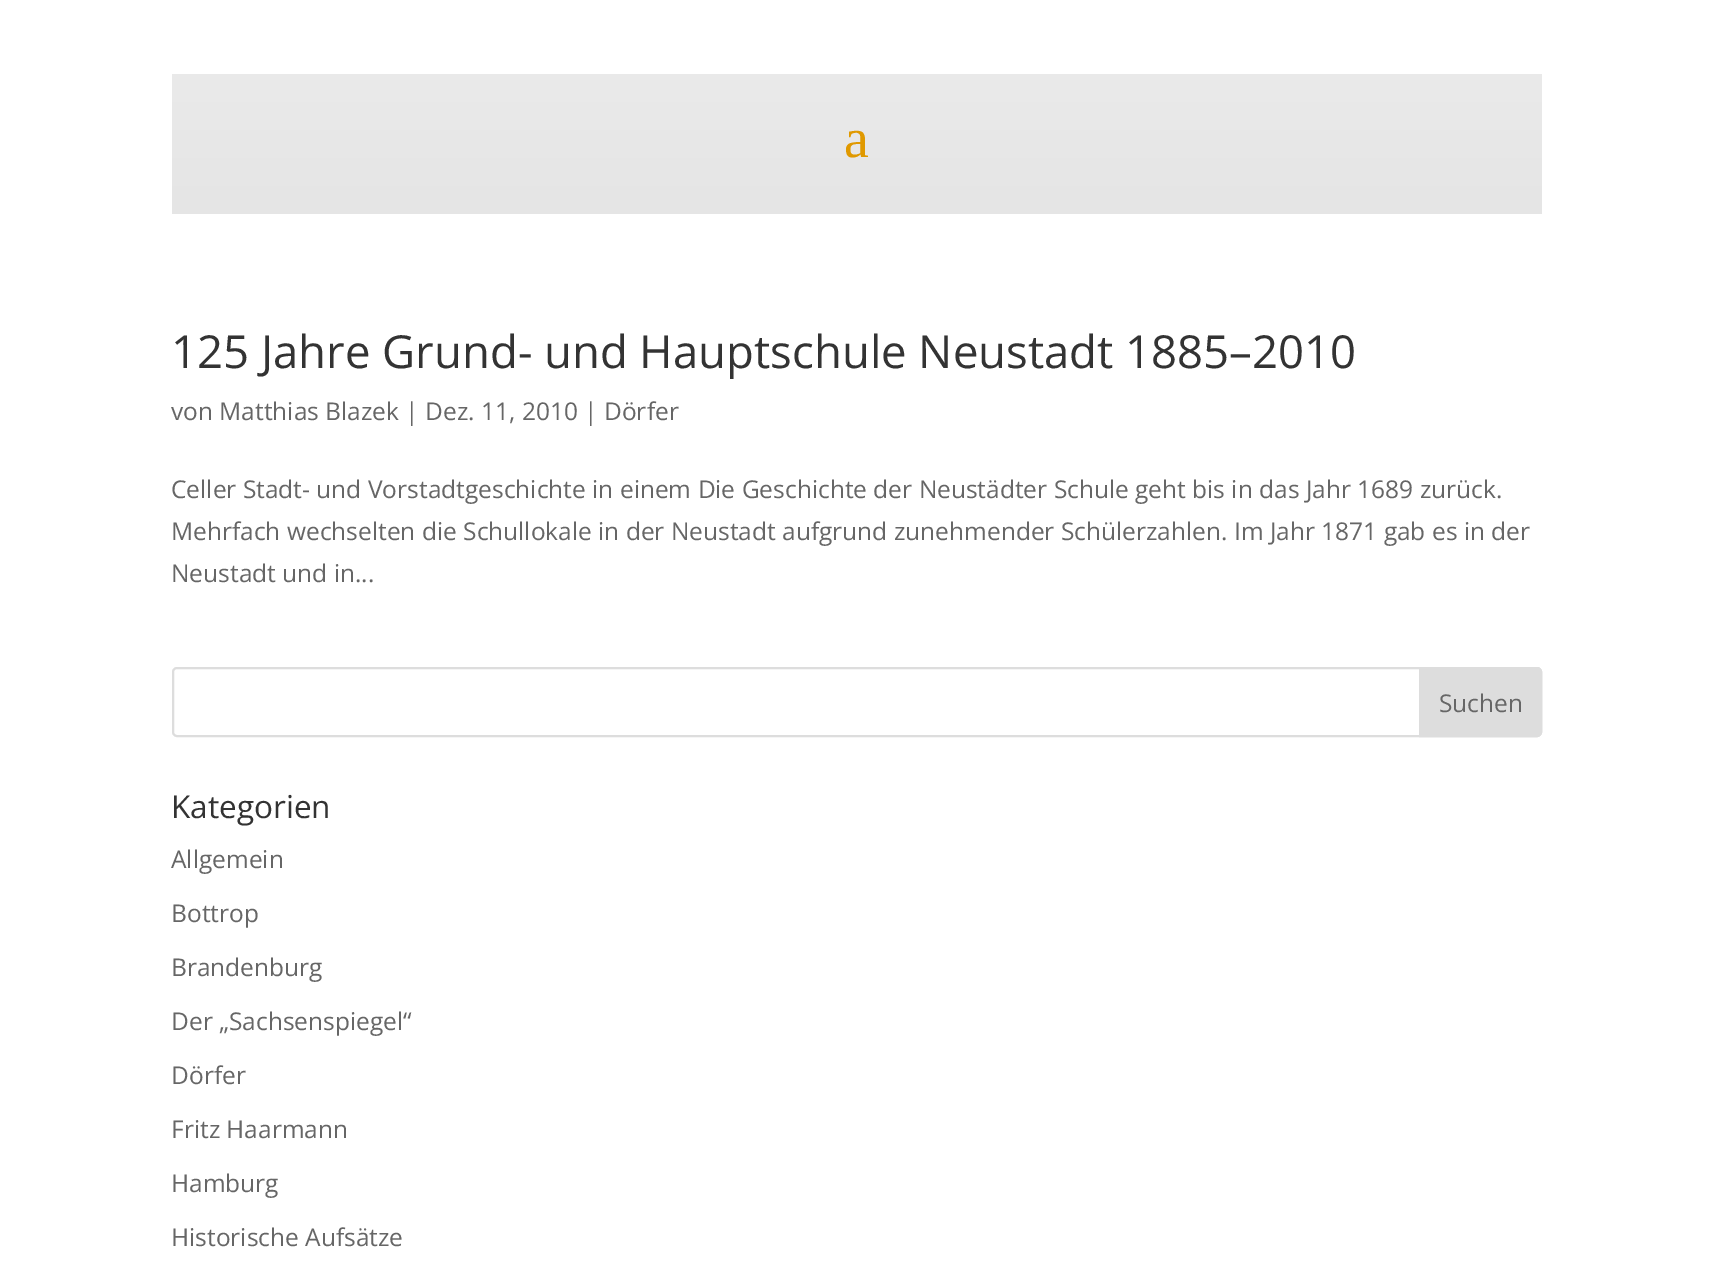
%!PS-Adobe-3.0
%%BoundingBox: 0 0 1713 1283
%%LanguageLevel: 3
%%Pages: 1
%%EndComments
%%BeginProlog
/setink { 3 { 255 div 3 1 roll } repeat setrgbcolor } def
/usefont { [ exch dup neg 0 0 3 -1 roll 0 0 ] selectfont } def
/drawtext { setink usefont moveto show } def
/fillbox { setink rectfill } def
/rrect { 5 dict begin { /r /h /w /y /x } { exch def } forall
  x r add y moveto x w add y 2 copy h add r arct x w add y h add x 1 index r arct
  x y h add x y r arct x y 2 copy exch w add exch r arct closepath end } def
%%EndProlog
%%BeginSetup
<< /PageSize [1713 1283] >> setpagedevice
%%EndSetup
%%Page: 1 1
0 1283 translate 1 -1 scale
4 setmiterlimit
0 0 1713 1283 255 255 255 fillbox
gsave 172 74 moveto 1542 74 lineto 1542 214 lineto 172 214 lineto closepath clip newpath
<< /ShadingType 2 /ColorSpace /DeviceRGB /Coords [857 73 857 214] /Extend [true true] /Function << /FunctionType 2 /Domain [0 1] /C0 [0.918 0.918 0.918] /C1 [0.898 0.898 0.898] /N 1 >> >> shfill grestore
(a) 844 157 /LiberationSerif-Regular 56 224 153 0 drawtext
(125 Jahre Grund- und Hauptschule Neustadt 1885–2010) 171 368 /OpenSans-Regular 45.5 51 51 51 drawtext
(von Matthias Blazek | Dez. 11, 2010 | Dörfer) 171 420 /OpenSans-Regular 24.5 102 102 102 drawtext
(Celler Stadt- und Vorstadtgeschichte in einem Die Geschichte der Neustädter Schule geht bis in das Jahr 1689 zurück.) 171 498 /OpenSans-Regular 24.5 102 102 102 drawtext
(Mehrfach wechselten die Schullokale in der Neustadt aufgrund zunehmender Schülerzahlen. Im Jahr 1871 gab es in der) 171 540 /OpenSans-Regular 24.5 102 102 102 drawtext
(Neustadt und in...) 171 582 /OpenSans-Regular 24.5 102 102 102 drawtext
221 221 221 setink
2 setlinewidth
173 668 1368 68 4 rrect stroke
1420 668 moveto 1537 668 lineto 1539 668 1541 670 1541 672 curveto 1541 732 lineto 1541 734 1539 736 1537 736 curveto 1420 736 lineto closepath gsave fill grestore
stroke
(Suchen) 1439 712 /OpenSans-Regular 24.5 102 102 102 drawtext
(Kategorien) 171 818 /OpenSans-Regular 31.5 51 51 51 drawtext
(Allgemein) 171 868 /OpenSans-Regular 24.5 102 102 102 drawtext
(Bottrop) 171 922 /OpenSans-Regular 24.5 102 102 102 drawtext
(Brandenburg) 171 976 /OpenSans-Regular 24.5 102 102 102 drawtext
(Der „Sachsenspiegel“) 171 1030 /OpenSans-Regular 24.5 102 102 102 drawtext
(Dörfer) 171 1084 /OpenSans-Regular 24.5 102 102 102 drawtext
(Fritz Haarmann) 171 1138 /OpenSans-Regular 24.5 102 102 102 drawtext
(Hamburg) 171 1192 /OpenSans-Regular 24.5 102 102 102 drawtext
(Historische Aufsätze) 171 1246 /OpenSans-Regular 24.5 102 102 102 drawtext
showpage
%%EOF
